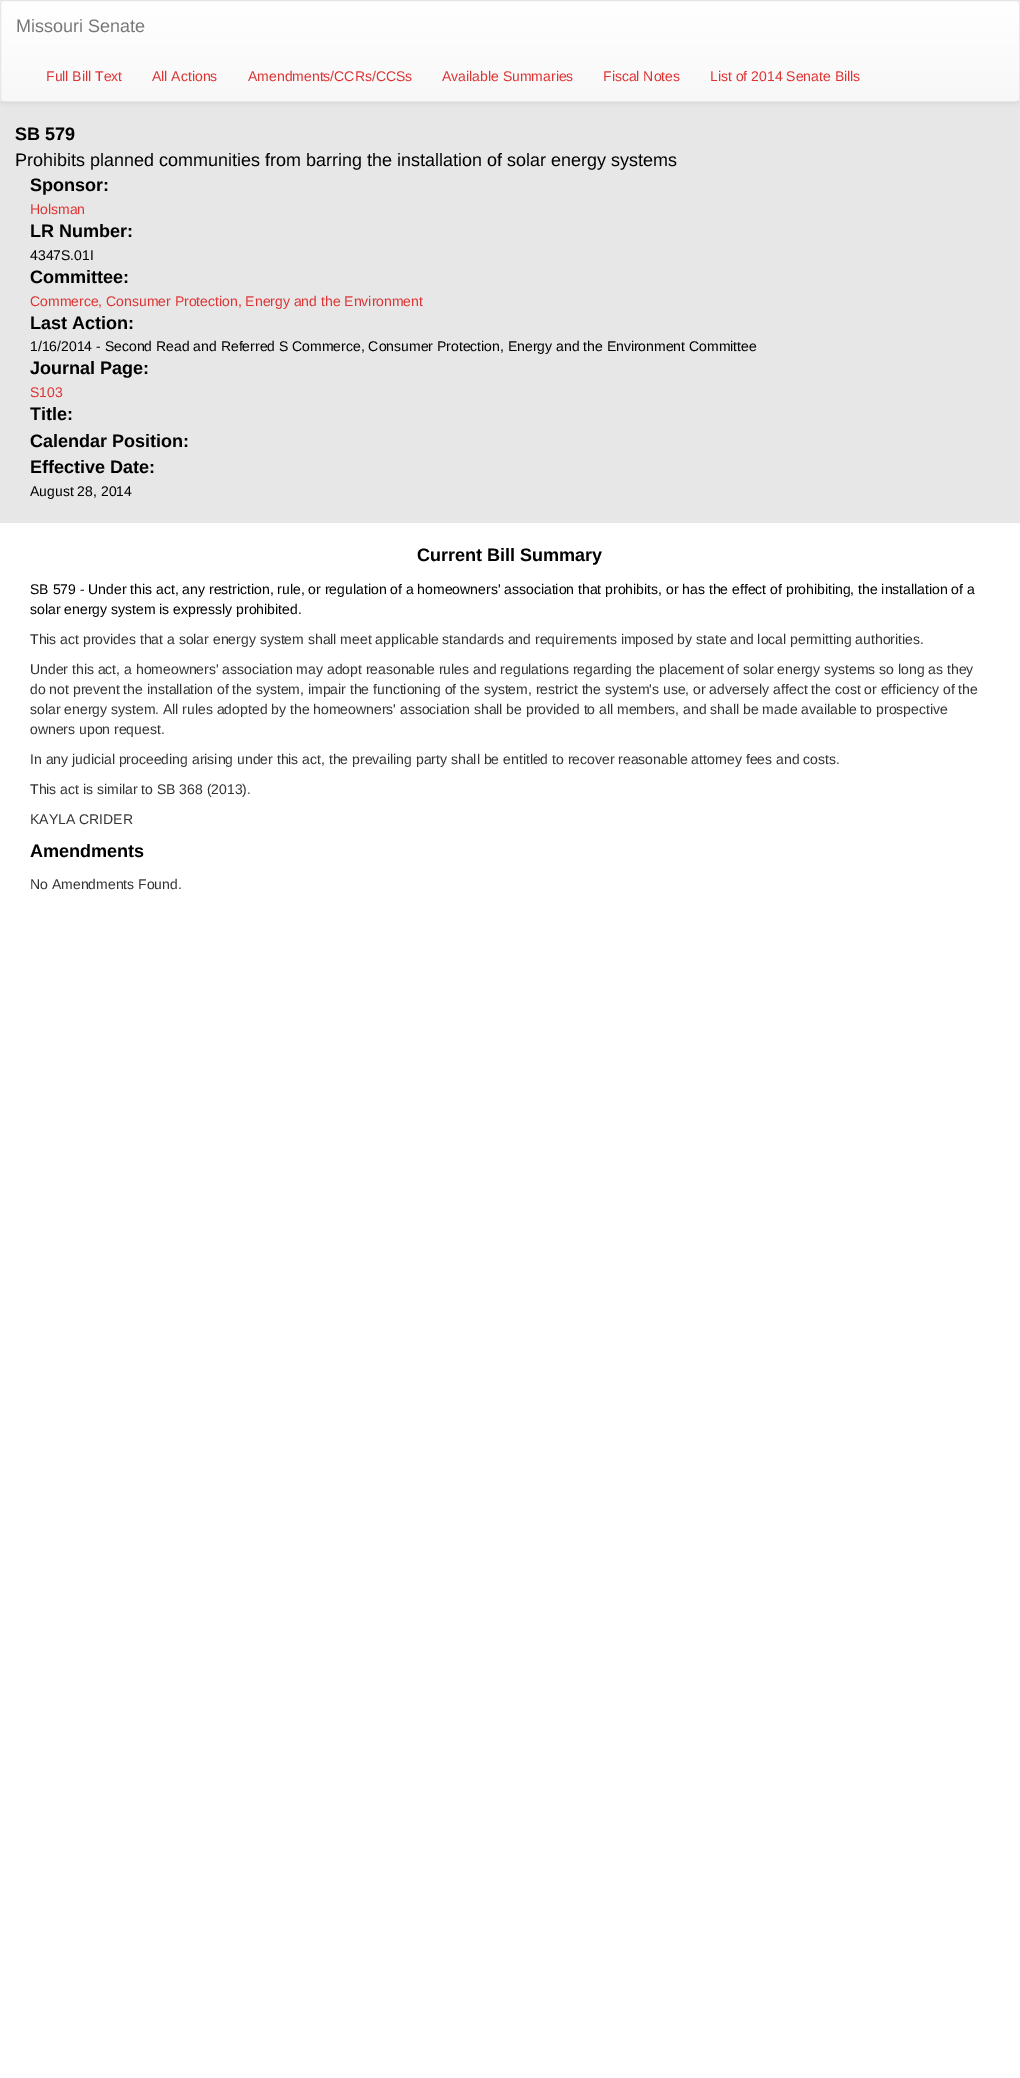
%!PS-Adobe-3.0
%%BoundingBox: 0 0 1020 2078
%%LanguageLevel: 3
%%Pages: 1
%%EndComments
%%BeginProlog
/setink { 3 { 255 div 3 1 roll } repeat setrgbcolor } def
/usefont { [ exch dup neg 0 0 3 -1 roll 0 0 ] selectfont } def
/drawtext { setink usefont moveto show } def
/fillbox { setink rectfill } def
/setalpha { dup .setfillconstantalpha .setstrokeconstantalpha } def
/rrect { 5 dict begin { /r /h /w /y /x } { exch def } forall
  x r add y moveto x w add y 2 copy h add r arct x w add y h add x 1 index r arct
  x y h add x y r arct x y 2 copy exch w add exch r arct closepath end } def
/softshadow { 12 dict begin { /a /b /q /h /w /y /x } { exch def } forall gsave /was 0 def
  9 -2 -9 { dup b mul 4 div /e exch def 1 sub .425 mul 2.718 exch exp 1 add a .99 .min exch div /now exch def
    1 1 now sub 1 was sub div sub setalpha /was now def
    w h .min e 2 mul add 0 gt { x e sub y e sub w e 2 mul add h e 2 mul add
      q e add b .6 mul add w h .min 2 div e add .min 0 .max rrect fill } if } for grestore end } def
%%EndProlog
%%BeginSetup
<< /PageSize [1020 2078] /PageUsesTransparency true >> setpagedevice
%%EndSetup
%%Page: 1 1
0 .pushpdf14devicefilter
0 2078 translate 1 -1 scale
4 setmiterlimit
0 0 1020 2078 255 255 255 fillbox
0 0 1020 523 231 231 231 fillbox
0 0 0 setink
0 1 1020 102 4 2.5 0.07 softshadow
gsave
0 0 1020 102 4 rrect clip newpath
gsave 0 1 moveto 1020 1 lineto 1020 101 lineto 0 101 lineto closepath clip newpath
<< /ShadingType 2 /ColorSpace /DeviceRGB /Coords [510 1 510 101] /Extend [true true] /Function << /FunctionType 2 /Domain [0 1] /C0 [1 1 1] /C1 [0.973 0.973 0.973] /N 1 >> >> shfill grestore
grestore
231 231 231 setink
0.5 0.5 1019 101 3.5 rrect stroke
(Missouri Senate) 16 32 /LiberationSans-Regular 18 119 119 119 drawtext
(Full Bill Text) 46 81 /LiberationSans-Regular 14 221 51 51 drawtext
(All Actions) 152 81 /LiberationSans-Regular 14 221 51 51 drawtext
(Amendments/CCRs/CCSs) 248 81 /LiberationSans-Regular 14 221 51 51 drawtext
(Available Summaries) 442 81 /LiberationSans-Regular 14 221 51 51 drawtext
(Fiscal Notes) 603 81 /LiberationSans-Regular 14 221 51 51 drawtext
(List of 2014 Senate Bills) 710 81 /LiberationSans-Regular 14 221 51 51 drawtext
(SB 579) 15 140 /LiberationSans-Bold 18 0 0 0 drawtext
(Prohibits planned communities from barring the installation of solar energy systems) 15 166 /LiberationSans-Regular 18 0 0 0 drawtext
(Sponsor:) 30 191 /LiberationSans-Bold 18 0 0 0 drawtext
(Holsman) 30 214 /LiberationSans-Regular 14 221 51 51 drawtext
(LR Number:) 30 237 /LiberationSans-Bold 18 0 0 0 drawtext
(4347S.01I) 30 260 /LiberationSans-Regular 14 0 0 0 drawtext
(Committee:) 30 283 /LiberationSans-Bold 18 0 0 0 drawtext
(Commerce, Consumer Protection, Energy and the Environment) 30 306 /LiberationSans-Regular 14 221 51 51 drawtext
(Last Action:) 30 329 /LiberationSans-Bold 18 0 0 0 drawtext
(1/16/2014 - Second Read and Referred S Commerce, Consumer Protection, Energy and the Environment Committee) 30 351 /LiberationSans-Regular 14 0 0 0 drawtext
(Journal Page:) 30 374 /LiberationSans-Bold 18 0 0 0 drawtext
(S103) 30 397 /LiberationSans-Regular 14 221 51 51 drawtext
(Title:) 30 420 /LiberationSans-Bold 18 0 0 0 drawtext
(Calendar Position:) 30 447 /LiberationSans-Bold 18 0 0 0 drawtext
(Effective Date:) 30 473 /LiberationSans-Bold 18 0 0 0 drawtext
(August 28, 2014) 30 496 /LiberationSans-Regular 14 0 0 0 drawtext
(Current Bill Summary) 417 561 /LiberationSans-Bold 18 0 0 0 drawtext
(SB 579 - Under this act, any restriction, rule, or regulation of a homeowners' association that prohibits, or has the effect of prohibiting, the installation of a) 30 594 /LiberationSans-Regular 14 0 0 0 drawtext
(solar energy system is expressly prohibited.) 30 614 /LiberationSans-Regular 14 0 0 0 drawtext
(This act provides that a solar energy system shall meet applicable standards and requirements imposed by state and local permitting authorities.) 30 644 /LiberationSans-Regular 14 51 51 51 drawtext
(Under this act, a homeowners' association may adopt reasonable rules and regulations regarding the placement of solar energy systems so long as they) 30 674 /LiberationSans-Regular 14 51 51 51 drawtext
(do not prevent the installation of the system, impair the functioning of the system, restrict the system's use, or adversely affect the cost or efficiency of the) 30 694 /LiberationSans-Regular 14 51 51 51 drawtext
(solar energy system. All rules adopted by the homeowners' association shall be provided to all members, and shall be made available to prospective) 30 714 /LiberationSans-Regular 14 51 51 51 drawtext
(owners upon request.) 30 734 /LiberationSans-Regular 14 51 51 51 drawtext
(In any judicial proceeding arising under this act, the prevailing party shall be entitled to recover reasonable attorney fees and costs.) 30 764 /LiberationSans-Regular 14 51 51 51 drawtext
(This act is similar to SB 368 \(2013\).) 30 794 /LiberationSans-Regular 14 51 51 51 drawtext
(KAYLA CRIDER) 30 824 /LiberationSans-Regular 14 51 51 51 drawtext
(Amendments) 30 857 /LiberationSans-Bold 18 0 0 0 drawtext
(No Amendments Found.) 30 889 /LiberationSans-Regular 14 51 51 51 drawtext
.poppdf14devicefilter showpage
%%EOF
